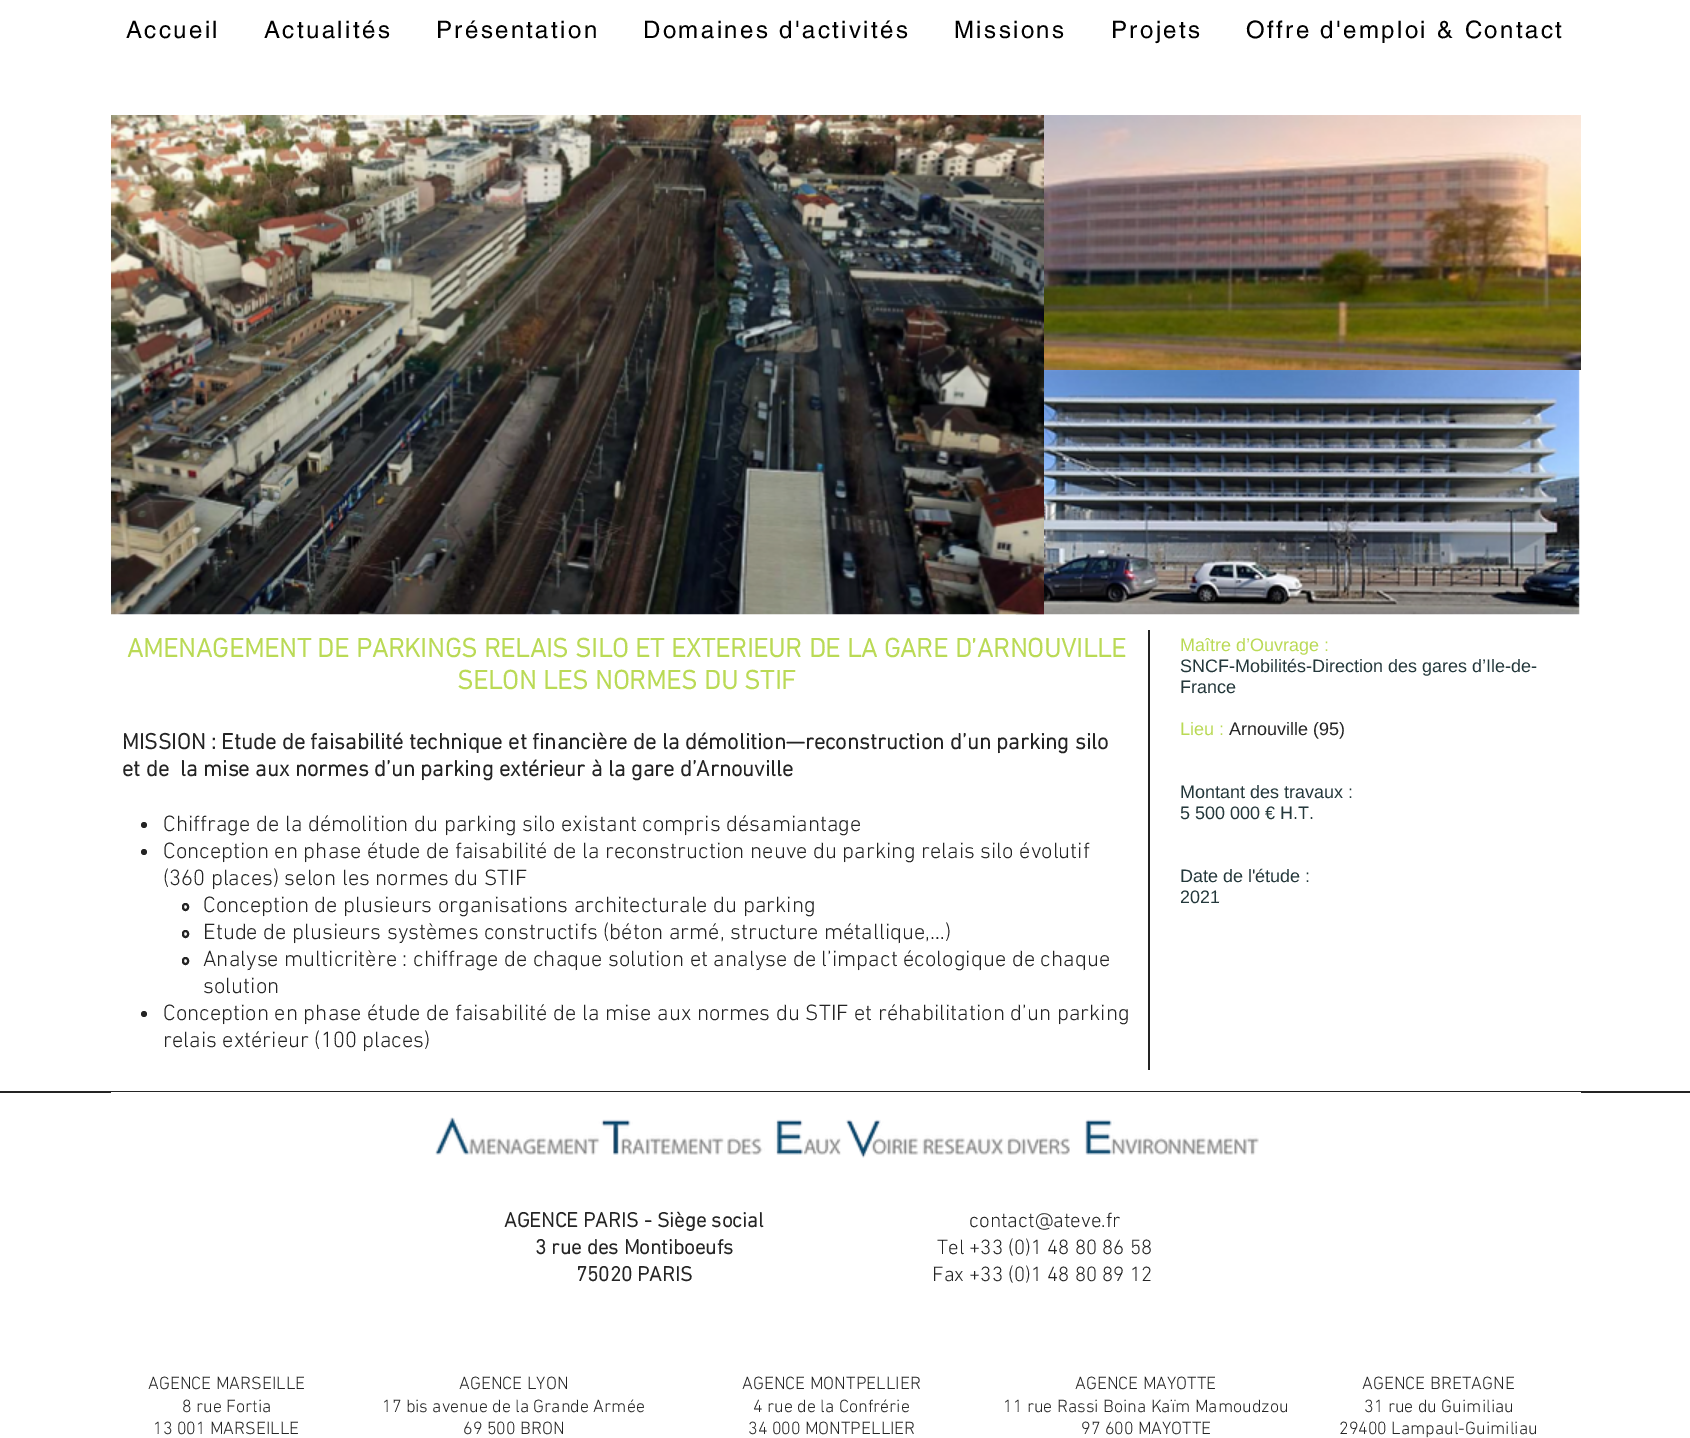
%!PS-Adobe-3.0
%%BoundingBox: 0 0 1690 1438
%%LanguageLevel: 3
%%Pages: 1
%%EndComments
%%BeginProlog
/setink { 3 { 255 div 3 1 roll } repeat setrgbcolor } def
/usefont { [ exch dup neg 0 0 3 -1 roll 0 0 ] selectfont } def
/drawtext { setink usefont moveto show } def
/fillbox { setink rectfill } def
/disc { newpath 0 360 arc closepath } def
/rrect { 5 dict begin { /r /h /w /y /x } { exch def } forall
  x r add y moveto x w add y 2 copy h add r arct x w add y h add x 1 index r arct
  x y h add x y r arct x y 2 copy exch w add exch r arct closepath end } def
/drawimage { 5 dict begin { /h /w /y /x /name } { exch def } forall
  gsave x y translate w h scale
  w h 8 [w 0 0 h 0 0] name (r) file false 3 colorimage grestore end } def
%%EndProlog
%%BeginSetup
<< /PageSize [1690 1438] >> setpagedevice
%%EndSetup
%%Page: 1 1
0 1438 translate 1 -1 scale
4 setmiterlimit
0 0 1690 1438 255 255 255 fillbox
/helvetica-Regular 24 usefont
0 0 0 setink
126 38 moveto 2.4 0 (Accueil) ashow
264 38 moveto 2.4 0 (Actualités) ashow
436 38 moveto 2.4 0 (Présentation) ashow
643 38 moveto 2.4 0 (Domaines d'activités) ashow
954 38 moveto 2.4 0 (Missions) ashow
1111 38 moveto 2.4 0 (Projets) ashow
1246 38 moveto 2.4 0 (Offre d'emploi & Contact) ashow
(assets/img3.rgb) 1015 370 565 245 drawimage
(assets/img1.rgb) 111 115 933 500 drawimage
(assets/img2.rgb) 1044 115 537 255 drawimage
(AMENAGEMENT DE PARKINGS RELAIS SILO ET EXTERIEUR DE LA GARE D’ARNOUVILLE) 127 657 /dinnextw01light-Bold 27 186 218 85 drawtext
(SELON LES NORMES DU STIF) 457 689 /dinnextw01light-Bold 27 186 218 85 drawtext
(MISSION : Etude de faisabilité technique et financière de la démolition—reconstruction d’un parking silo) 122 749 /dinnextw01light-Bold 22.5 36 36 36 drawtext
(et de  la mise aux normes d’un parking extérieur à la gare d’Arnouville) 122 776 /dinnextw01light-Bold 22.5 36 36 36 drawtext
144 825 3 disc fill
(Chiffrage de la démolition du parking silo existant compris désamiantage) 163 831 /dinnextw01light-Light 22.5 36 36 36 drawtext
144 852 3 disc fill
(Conception en phase étude de faisabilité de la reconstruction neuve du parking relais silo évolutif) 163 858 /dinnextw01light-Light 22.5 36 36 36 drawtext
(\(360 places\) selon les normes du STIF) 163 885 /dinnextw01light-Light 22.5 36 36 36 drawtext
2 setlinewidth
183 904 5 6 2.5 rrect stroke
(Conception de plusieurs organisations architecturale du parking) 203 912 /dinnextw01light-Light 22.5 36 36 36 drawtext
183 931 5 6 2.5 rrect stroke
(Etude de plusieurs systèmes constructifs \(béton armé, structure métallique,…\)) 203 939 /dinnextw01light-Light 22.5 36 36 36 drawtext
183 958 5 6 2.5 rrect stroke
(Analyse multicritère : chiffrage de chaque solution et analyse de l’impact écologique de chaque) 203 966 /dinnextw01light-Light 22.5 36 36 36 drawtext
(solution) 203 993 /dinnextw01light-Light 22.5 36 36 36 drawtext
144 1014 3 disc fill
(Conception en phase étude de faisabilité de la mise aux normes du STIF et réhabilitation d’un parking) 163 1020 /dinnextw01light-Light 22.5 36 36 36 drawtext
(relais extérieur \(100 places\)) 163 1047 /dinnextw01light-Light 22.5 36 36 36 drawtext
1148 630 2 440 36 36 36 fillbox
(Maître d’Ouvrage :) 1180 651 /LiberationSans-Regular 18 186 218 85 drawtext
(SNCF-Mobilités-Direction des gares d’Ile-de-) 1180 672 /LiberationSans-Regular 18 36 56 59 drawtext
(France) 1180 693 /LiberationSans-Regular 18 36 56 59 drawtext
(Lieu :) 1180 735 /LiberationSans-Regular 18 186 218 85 drawtext
(Arnouville \(95\)) 1229 735 /LiberationSans-Regular 18 36 36 36 drawtext
(Montant des travaux :) 1180 798 /LiberationSans-Regular 18 36 56 59 drawtext
(5 500 000 € H.T.) 1180 819 /LiberationSans-Regular 18 36 56 59 drawtext
(Date de l'étude :) 1180 882 /LiberationSans-Regular 18 36 56 59 drawtext
(2021) 1180 903 /LiberationSans-Regular 18 36 56 59 drawtext
0 1091 1690 2 36 36 36 fillbox
111 1092 1470 1 255 255 255 fillbox
(assets/img4.rgb) 435 1117 824 41 drawimage
(AGENCE PARIS - Siège social) 504 1227 /dinnextw01light-Bold 21 36 36 36 drawtext
(3 rue des Montiboeufs) 535 1254 /dinnextw01light-Bold 21 36 36 36 drawtext
(75020 PARIS) 576 1281 /dinnextw01light-Bold 21 36 36 36 drawtext
(contact@ateve.fr) 969 1227 /dinnextw01light-Light 21 36 36 36 drawtext
(Tel +33 \(0\)1 48 80 86 58) 937 1254 /dinnextw01light-Light 21 36 36 36 drawtext
(Fax +33 \(0\)1 48 80 89 12) 932 1281 /dinnextw01light-Light 21 36 36 36 drawtext
(AGENCE MARSEILLE) 148 1389 /dinnextw01light-Light 18 36 36 36 drawtext
(8 rue Fortia) 182 1412 /dinnextw01light-Light 18 36 36 36 drawtext
(13 001 MARSEILLE) 153 1434 /dinnextw01light-Light 18 36 36 36 drawtext
(AGENCE LYON) 459 1389 /dinnextw01light-Light 18 36 36 36 drawtext
(17 bis avenue de la Grande Armée) 382 1412 /dinnextw01light-Light 18 36 36 36 drawtext
(69 500 BRON) 463 1434 /dinnextw01light-Light 18 36 36 36 drawtext
(AGENCE MONTPELLIER) 742 1389 /dinnextw01light-Light 18 36 36 36 drawtext
(4 rue de la Confrérie) 753 1412 /dinnextw01light-Light 18 36 36 36 drawtext
(34 000 MONTPELLIER) 748 1434 /dinnextw01light-Light 18 36 36 36 drawtext
(AGENCE MAYOTTE) 1075 1389 /dinnextw01light-Light 18 36 36 36 drawtext
(11 rue Rassi Boina Kaïm Mamoudzou) 1003 1412 /dinnextw01light-Light 18 36 36 36 drawtext
(97 600 MAYOTTE) 1081 1434 /dinnextw01light-Light 18 36 36 36 drawtext
(AGENCE BRETAGNE) 1362 1389 /dinnextw01light-Light 18 36 36 36 drawtext
(31 rue du Guimiliau) 1364 1412 /dinnextw01light-Light 18 36 36 36 drawtext
(29400 Lampaul-Guimiliau) 1339 1434 /dinnextw01light-Light 18 36 36 36 drawtext
showpage
%%EOF
